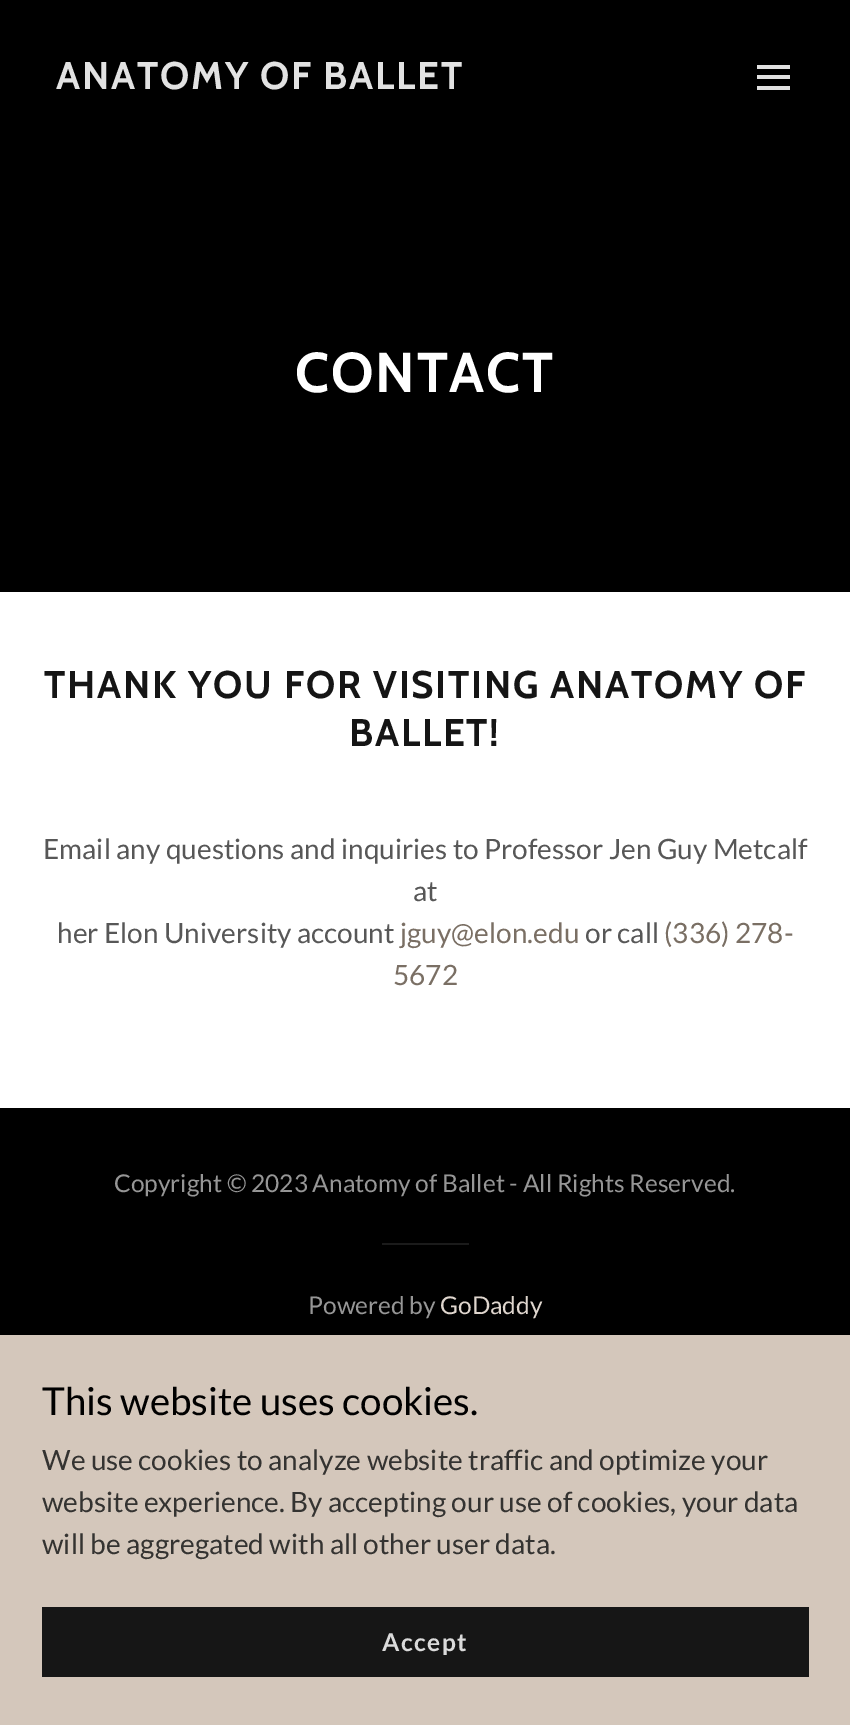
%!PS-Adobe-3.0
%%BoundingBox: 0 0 850 1725
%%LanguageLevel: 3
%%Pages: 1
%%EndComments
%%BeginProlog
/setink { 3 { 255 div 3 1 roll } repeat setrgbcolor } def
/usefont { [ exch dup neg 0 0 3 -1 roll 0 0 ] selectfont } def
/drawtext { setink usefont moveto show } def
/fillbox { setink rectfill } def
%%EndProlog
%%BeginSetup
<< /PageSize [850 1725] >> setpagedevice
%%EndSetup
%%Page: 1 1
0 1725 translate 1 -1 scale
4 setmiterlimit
0 0 850 1725 0 0 0 fillbox
/Cabin-Bold 38.5 usefont
226 226 226 setink
56 89 moveto 1.75 0 (ANATOMY OF BALLET) ashow
757 65 33 4 226 226 226 fillbox
757 75 33 4 226 226 226 fillbox
757 86 33 4 226 226 226 fillbox
/Cabin-Bold 56 usefont
255 255 255 setink
295 392 moveto 1.75 0 (CONTACT) ashow
0 592 850 516 255 255 255 fillbox
/Cabin-Bold 38.5 usefont
21 21 21 setink
44 698 moveto 1.75 0 (THANK YOU FOR VISITING ANATOMY OF) ashow
349 746 moveto 1.75 0 (BALLET!) ashow
(Email any questions and inquiries to Professor Jen Guy Metcalf) 43 859 /Lato-Regular 28 87 87 87 drawtext
(at) 413 901 /Lato-Regular 28 87 87 87 drawtext
(her Elon University account) 57 943 /Lato-Regular 28 87 87 87 drawtext
(jguy@elon.edu) 400 943 /Lato-Regular 28 122 111 100 drawtext
(or call) 585 943 /Lato-Regular 28 87 87 87 drawtext
(\(336\) 278-) 664 943 /Lato-Regular 28 122 111 100 drawtext
(5672) 393 985 /Lato-Regular 28 122 111 100 drawtext
(Copyright © 2023 Anatomy of Ballet - All Rights Reserved.) 114 1192 /Lato-Regular 24.5 150 150 150 drawtext
382 1243 87 2 27 27 27 fillbox
(Powered by) 308 1314 /Lato-Regular 24.5 150 150 150 drawtext
(GoDaddy) 440 1314 /Lato-Regular 24.5 223 214 206 drawtext
0 1335 850 390 212 199 187 fillbox
(This website uses cookies.) 42 1415 /Lato-Regular 38.5 0 0 0 drawtext
(We use cookies to analyze website traffic and optimize your) 42 1470 /Lato-Regular 28 52 51 49 drawtext
(website experience. By accepting our use of cookies, your data) 42 1512 /Lato-Regular 28 52 51 49 drawtext
(will be aggregated with all other user data.) 42 1554 /Lato-Regular 28 52 51 49 drawtext
42 1607 767 70 22 22 22 fillbox
/Lato-Bold 24.5 usefont
219 219 219 setink
382 1651 moveto 1.5 0 (Accept) ashow
showpage
%%EOF
